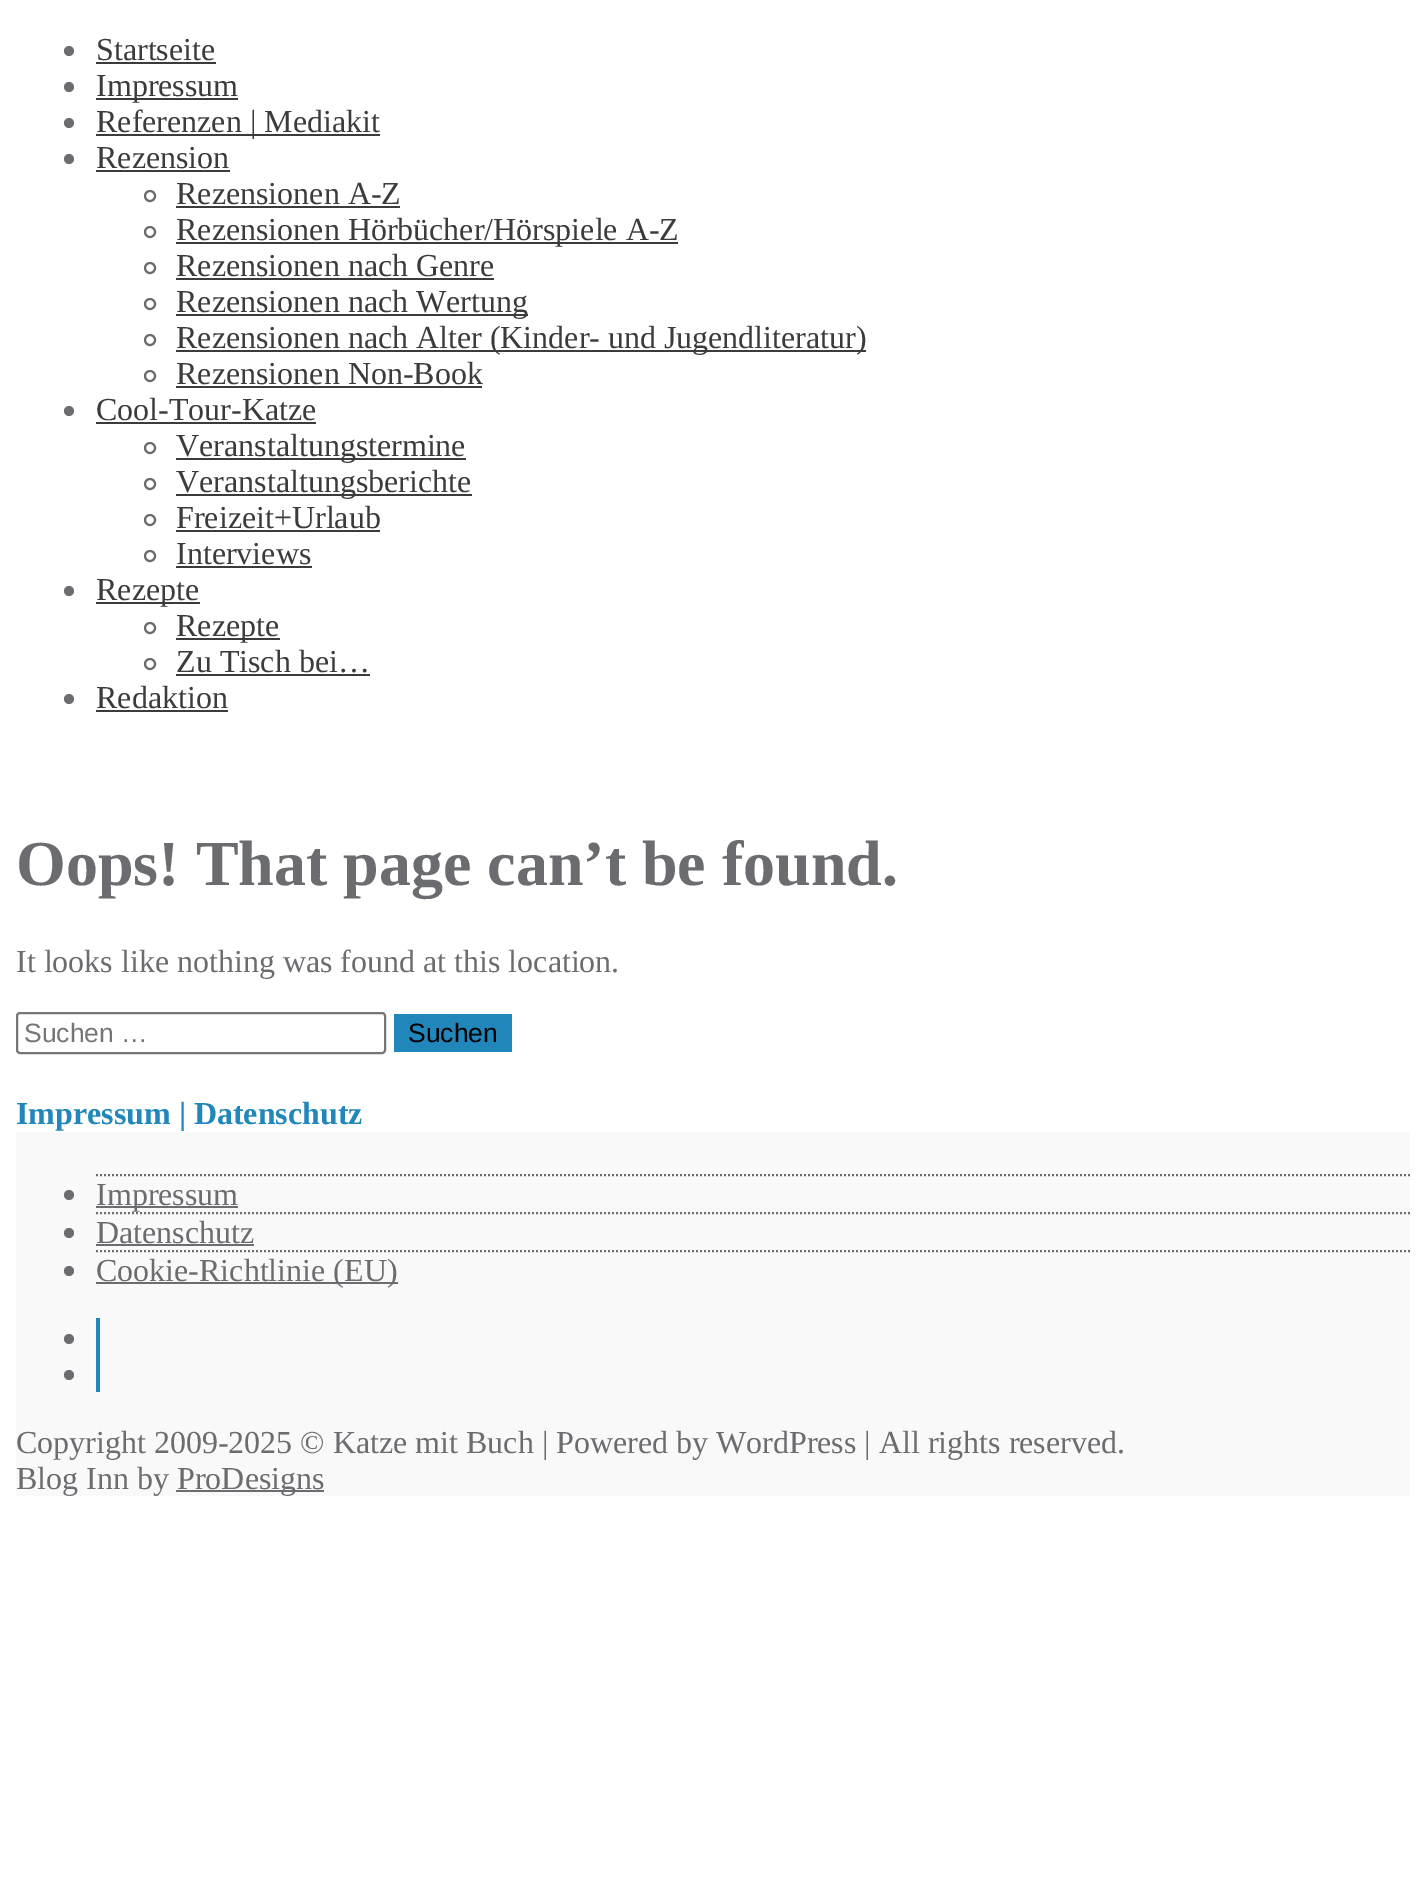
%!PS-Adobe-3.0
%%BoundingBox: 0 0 1425 1898
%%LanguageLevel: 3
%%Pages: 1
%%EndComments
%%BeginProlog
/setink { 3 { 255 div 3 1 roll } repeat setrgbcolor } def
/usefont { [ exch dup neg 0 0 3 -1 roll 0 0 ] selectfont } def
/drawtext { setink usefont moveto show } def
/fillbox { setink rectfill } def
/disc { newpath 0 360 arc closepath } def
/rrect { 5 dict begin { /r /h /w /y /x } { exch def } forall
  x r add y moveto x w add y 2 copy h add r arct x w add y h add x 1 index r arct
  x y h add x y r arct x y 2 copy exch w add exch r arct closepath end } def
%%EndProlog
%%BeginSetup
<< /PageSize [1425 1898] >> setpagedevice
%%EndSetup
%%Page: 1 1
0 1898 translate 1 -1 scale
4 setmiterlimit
0 0 1425 1898 255 255 255 fillbox
106 108 111 setink
69 51 5 disc fill
(Startseite) 96 60 /LiberationSerif-Regular 32 58 59 61 drawtext
96 62 120 2 58 59 61 fillbox
106 108 111 setink
69 87 5 disc fill
96 98 142 2 58 59 61 fillbox
(Impressum) 96 96 /LiberationSerif-Regular 32 58 59 61 drawtext
106 108 111 setink
69 123 5 disc fill
96 134 284 2 58 59 61 fillbox
(Referenzen | Mediakit) 96 132 /LiberationSerif-Regular 32 58 59 61 drawtext
106 108 111 setink
69 159 5 disc fill
(Rezension) 96 168 /LiberationSerif-Regular 32 58 59 61 drawtext
96 170 134 2 58 59 61 fillbox
106 108 111 setink
2 setlinewidth
150 196 5 disc stroke
(Rezensionen A-Z) 176 204 /LiberationSerif-Regular 32 58 59 61 drawtext
176 206 224 2 58 59 61 fillbox
106 108 111 setink
150 232 5 disc stroke
176 242 502 2 58 59 61 fillbox
(Rezensionen Hörbücher/Hörspiele A-Z) 176 240 /LiberationSerif-Regular 32 58 59 61 drawtext
106 108 111 setink
150 268 5 disc stroke
(Rezensionen nach Genre) 176 276 /LiberationSerif-Regular 32 58 59 61 drawtext
176 278 318 2 58 59 61 fillbox
106 108 111 setink
150 304 5 disc stroke
176 314 352 2 58 59 61 fillbox
(Rezensionen nach Wertung) 176 312 /LiberationSerif-Regular 32 58 59 61 drawtext
106 108 111 setink
150 340 5 disc stroke
176 350 690 2 58 59 61 fillbox
(Rezensionen nach Alter \(Kinder- und Jugendliteratur\)) 176 348 /LiberationSerif-Regular 32 58 59 61 drawtext
106 108 111 setink
150 376 5 disc stroke
(Rezensionen Non-Book) 176 384 /LiberationSerif-Regular 32 58 59 61 drawtext
176 386 306 2 58 59 61 fillbox
106 108 111 setink
69 411 5 disc fill
(Cool-Tour-Katze) 96 420 /LiberationSerif-Regular 32 58 59 61 drawtext
96 422 220 2 58 59 61 fillbox
106 108 111 setink
150 448 5 disc stroke
176 458 290 2 58 59 61 fillbox
(Veranstaltungstermine) 176 456 /LiberationSerif-Regular 32 58 59 61 drawtext
106 108 111 setink
150 484 5 disc stroke
176 494 296 2 58 59 61 fillbox
(Veranstaltungsberichte) 176 492 /LiberationSerif-Regular 32 58 59 61 drawtext
106 108 111 setink
150 520 5 disc stroke
(Freizeit+Urlaub) 176 528 /LiberationSerif-Regular 32 58 59 61 drawtext
176 530 204 2 58 59 61 fillbox
106 108 111 setink
150 556 5 disc stroke
(Interviews) 176 564 /LiberationSerif-Regular 32 58 59 61 drawtext
176 566 136 2 58 59 61 fillbox
106 108 111 setink
69 591 5 disc fill
96 602 104 2 58 59 61 fillbox
(Rezepte) 96 600 /LiberationSerif-Regular 32 58 59 61 drawtext
106 108 111 setink
150 628 5 disc stroke
176 638 104 2 58 59 61 fillbox
(Rezepte) 176 636 /LiberationSerif-Regular 32 58 59 61 drawtext
106 108 111 setink
150 664 5 disc stroke
(Zu Tisch bei…) 176 672 /LiberationSerif-Regular 32 58 59 61 drawtext
176 674 194 2 58 59 61 fillbox
106 108 111 setink
69 699 5 disc fill
(Redaktion) 96 708 /LiberationSerif-Regular 32 58 59 61 drawtext
96 710 132 2 58 59 61 fillbox
(Oops! That page can’t be found.) 16 885 /LiberationSerif-Bold 64 106 108 111 drawtext
(It looks like nothing was found at this location.) 16 972 /LiberationSerif-Regular 32 106 108 111 drawtext
118 118 118 setink
17 1013 368 40 3 rrect stroke
(Suchen …) 24 1042 /LiberationSans-Regular 26.5 117 117 117 drawtext
394 1014 118 38 33 135 187 fillbox
(Suchen) 408 1042 /LiberationSans-Regular 26.5 0 0 0 drawtext
16 1132 1394 364 249 249 249 fillbox
(Impressum | Datenschutz) 16 1124 /LiberationSerif-Bold 32 33 135 187 drawtext
106 108 111 setink
[2 2] 0 setdash
96 1175 moveto 1410 1175 lineto stroke
69 1195 5 disc fill
96 1206 142 2 106 108 111 fillbox
(Impressum) 96 1205 /LiberationSerif-Regular 32 106 108 111 drawtext
96 1213 moveto 1410 1213 lineto stroke
69 1233 5 disc fill
(Datenschutz) 96 1243 /LiberationSerif-Regular 32 106 108 111 drawtext
96 1244 158 2 106 108 111 fillbox
96 1251 moveto 1410 1251 lineto stroke
69 1271 5 disc fill
96 1282 302 2 106 108 111 fillbox
(Cookie-Richtlinie \(EU\)) 96 1281 /LiberationSerif-Regular 32 106 108 111 drawtext
69 1339 5 disc fill
96 1318 4 74 33 135 187 fillbox
106 108 111 setink
69 1375 5 disc fill
(Copyright 2009-2025 © Katze mit Buch | Powered by WordPress | All rights reserved.) 16 1453 /LiberationSerif-Regular 32 106 108 111 drawtext
(Blog Inn by) 16 1489 /LiberationSerif-Regular 32 106 108 111 drawtext
176 1490 148 2 106 108 111 fillbox
(ProDesigns) 177 1489 /LiberationSerif-Regular 32 106 108 111 drawtext
showpage
%%EOF
